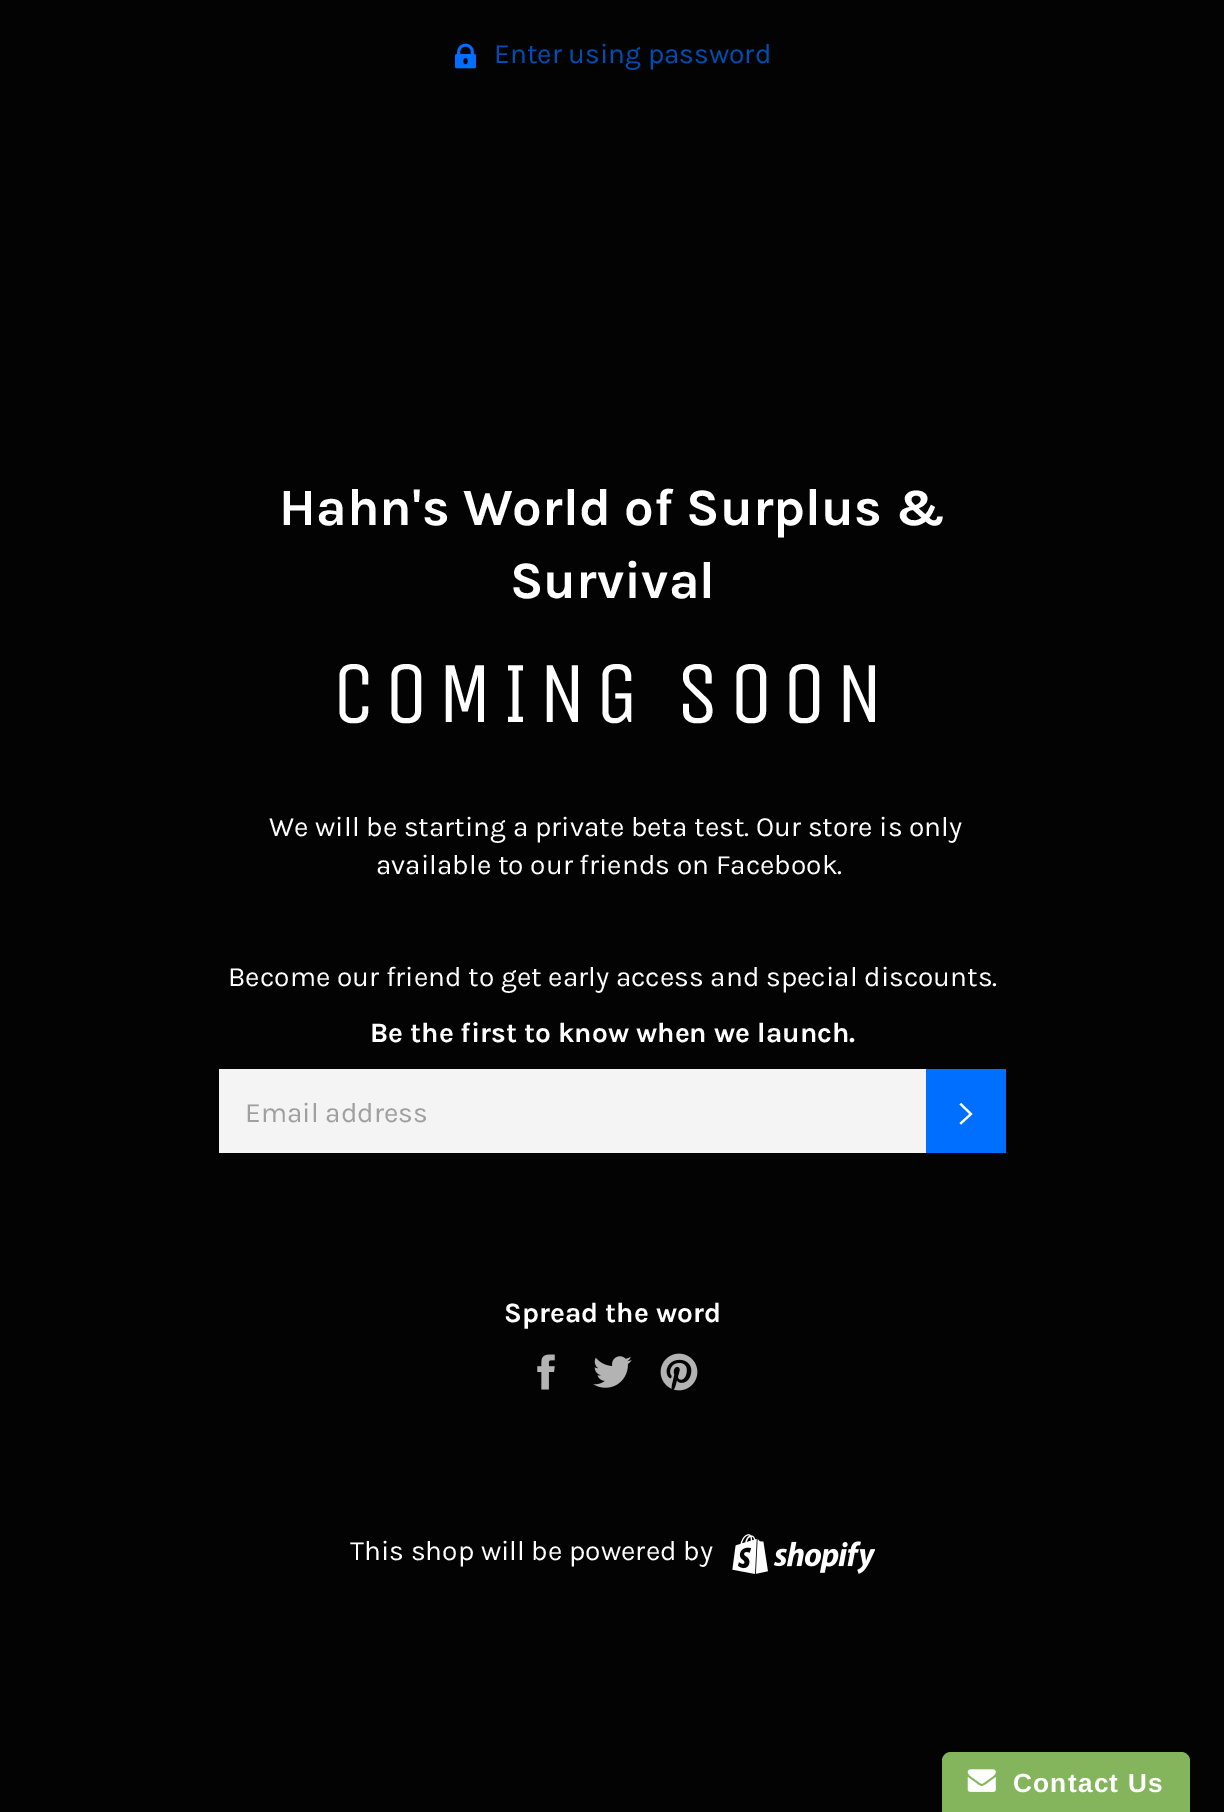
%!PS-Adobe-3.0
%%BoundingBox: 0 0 1224 1812
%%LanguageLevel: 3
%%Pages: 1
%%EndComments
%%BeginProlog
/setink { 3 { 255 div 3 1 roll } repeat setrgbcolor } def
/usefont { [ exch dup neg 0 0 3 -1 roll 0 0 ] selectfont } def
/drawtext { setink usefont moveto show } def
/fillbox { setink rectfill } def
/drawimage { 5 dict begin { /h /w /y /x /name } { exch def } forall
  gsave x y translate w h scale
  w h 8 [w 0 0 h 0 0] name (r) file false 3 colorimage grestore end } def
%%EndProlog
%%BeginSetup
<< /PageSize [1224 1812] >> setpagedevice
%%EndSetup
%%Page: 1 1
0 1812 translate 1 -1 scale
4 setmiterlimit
0 0 1224 1812 3 3 3 fillbox
(assets/img1.rgb) 455 43 21 26 drawimage
(Enter using password) 494 63 /Karla-Regular 28 0 77 179 drawtext
(Hahn's World of Surplus &) 279 525 /Karla-Bold 52.5 255 255 255 drawtext
(Survival) 510 598 /Karla-Bold 52.5 255 255 255 drawtext
/UnicaOne-Regular 87.5 usefont
332 722 moveto 8.75 0 (COMING SOON) ashow
(We will be starting a private beta test. Our store is only) 269 836 /Karla-Regular 28 255 255 255 drawtext
(available to our friends on Facebook.) 376 874 /Karla-Regular 28 255 255 255 drawtext
(Become our friend to get early access and special discounts.) 228 986 /Karla-Regular 28 255 255 255 drawtext
(Be the first to know when we launch.) 370 1042 /Karla-Bold 28 255 255 255 drawtext
219 1069 707 84 244 244 244 fillbox
(Email address) 245 1122 /Karla-Regular 28 159 159 159 drawtext
926 1069 80 84 0 110 255 fillbox
255 255 255 setink
959.5 1104.5 moveto 961 1103 lineto 972.5 1114 lineto 961 1124.5 lineto 959.5 1123 lineto 969.5 1114 lineto closepath fill
(Spread the word) 504 1322 /Karla-Bold 28 255 255 255 drawtext
(assets/img2.rgb) 537 1354 18 36 drawimage
(assets/img3.rgb) 593 1356 39 32 drawimage
(assets/img4.rgb) 660 1353 38 38 drawimage
(This shop will be powered by) 350 1560 /Karla-Regular 28 255 255 255 drawtext
(assets/img5.rgb) 732 1534 143 40 drawimage
132 180 91 setink
951 1752 moveto 1181 1752 lineto 1186 1752 1190 1756 1190 1761 curveto 1190 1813 lineto 942 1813 lineto 942 1761 lineto 942 1756 946 1752 951 1752 curveto closepath fill
(assets/img6.rgb) 967 1769 29 23 drawimage
/LiberationSans-Bold 26.25 usefont
255 255 255 setink
1013 1792 moveto 1.25 0 (Contact Us) ashow
showpage
%%EOF
